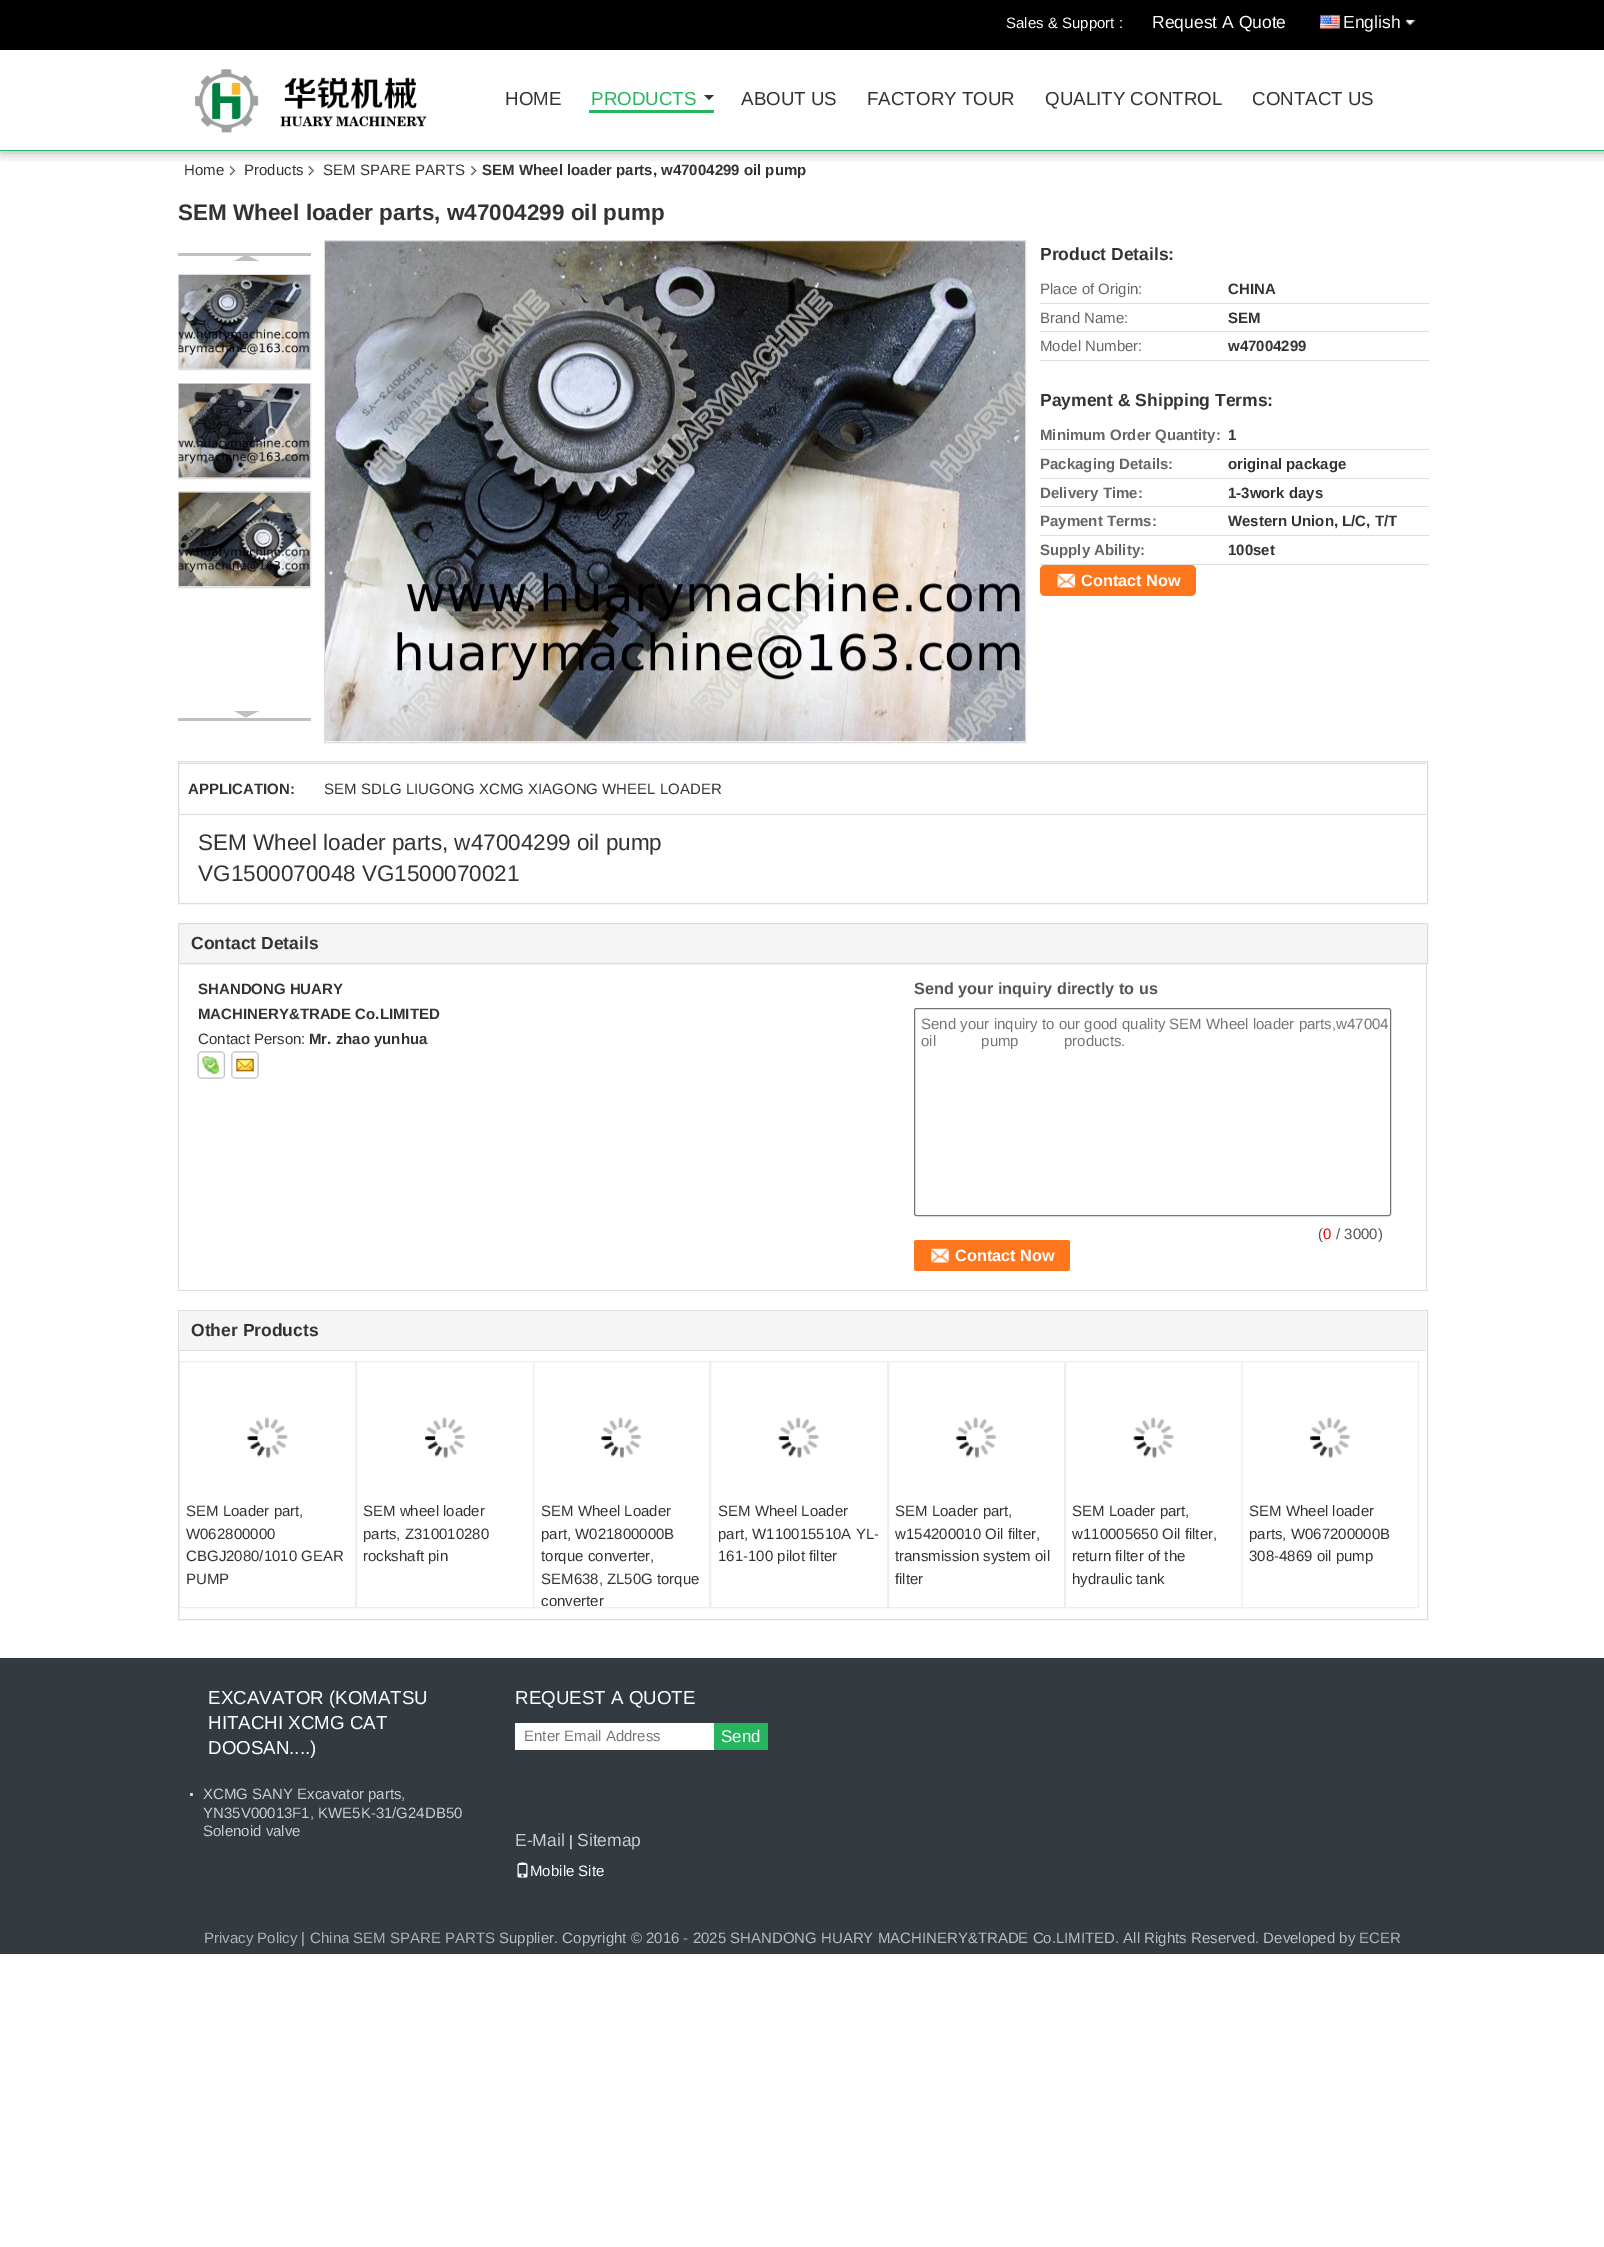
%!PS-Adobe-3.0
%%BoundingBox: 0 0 1604 2247
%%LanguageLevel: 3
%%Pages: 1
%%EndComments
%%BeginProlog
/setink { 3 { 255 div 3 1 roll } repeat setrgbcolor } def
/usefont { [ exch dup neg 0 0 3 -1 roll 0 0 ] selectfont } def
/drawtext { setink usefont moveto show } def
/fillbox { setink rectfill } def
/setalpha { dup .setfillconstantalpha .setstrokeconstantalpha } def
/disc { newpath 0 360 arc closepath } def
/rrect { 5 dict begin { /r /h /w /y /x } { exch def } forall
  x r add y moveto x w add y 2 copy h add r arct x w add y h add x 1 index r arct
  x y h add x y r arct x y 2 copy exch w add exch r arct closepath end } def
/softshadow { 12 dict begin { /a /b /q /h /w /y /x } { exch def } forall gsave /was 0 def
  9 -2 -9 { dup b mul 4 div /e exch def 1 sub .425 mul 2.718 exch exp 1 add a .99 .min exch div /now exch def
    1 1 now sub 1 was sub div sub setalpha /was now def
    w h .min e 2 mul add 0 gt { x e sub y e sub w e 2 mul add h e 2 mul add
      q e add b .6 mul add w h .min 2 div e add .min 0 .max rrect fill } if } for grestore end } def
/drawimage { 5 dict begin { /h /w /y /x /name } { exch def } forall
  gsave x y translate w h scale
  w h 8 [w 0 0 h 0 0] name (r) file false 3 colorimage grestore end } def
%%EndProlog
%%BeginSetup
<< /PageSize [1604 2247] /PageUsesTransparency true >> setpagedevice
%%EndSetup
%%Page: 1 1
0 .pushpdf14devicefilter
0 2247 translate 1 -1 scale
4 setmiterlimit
0 0 1604 2247 255 255 255 fillbox
gsave
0 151 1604 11 rectclip
0 0 0 setink
1 1 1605 152 0 6 0.3 softshadow
grestore
0 150 1604 1 39 180 95 fillbox
0 0 1604 50 0 0 0 fillbox
(Sales & Support :) 1006 28 /LiberationSans-Regular 15 255 255 255 drawtext
(Request A Quote) 1152 28 /LiberationSans-Regular 17.5 255 255 255 drawtext
(assets/img1.rgb) 1320 14 20 15 drawimage
(English) 1343 28 /LiberationSans-Regular 17.5 255 255 255 drawtext
(assets/img2.rgb) 1406 19 10 7 drawimage
(assets/img3.rgb) 194 69 233 64 drawimage
(HOME) 505 105 /LiberationSans-Regular 18.75 51 51 51 drawtext
589 110 125 3 39 180 95 fillbox
(PRODUCTS) 591 105 /LiberationSans-Regular 18.75 39 180 95 drawtext
51 51 51 setink
704 95 moveto 714 95 lineto 709 100 lineto closepath fill
(ABOUT US) 741 105 /LiberationSans-Regular 18.75 51 51 51 drawtext
(FACTORY TOUR) 867 105 /LiberationSans-Regular 18.75 51 51 51 drawtext
(QUALITY CONTROL) 1045 105 /LiberationSans-Regular 18.75 51 51 51 drawtext
(CONTACT US) 1252 105 /LiberationSans-Regular 18.75 51 51 51 drawtext
(Home) 184 175 /LiberationSans-Regular 15 51 51 51 drawtext
(assets/img4.rgb) 229 166 7 10 drawimage
(Products) 244 175 /LiberationSans-Regular 15 51 51 51 drawtext
(assets/img5.rgb) 308 166 6 10 drawimage
(SEM SPARE PARTS) 323 175 /LiberationSans-Regular 15 51 51 51 drawtext
(assets/img6.rgb) 471 166 6 10 drawimage
(SEM Wheel loader parts, w47004299 oil pump) 482 175 /LiberationSans-Bold 15 51 51 51 drawtext
(SEM Wheel loader parts, w47004299 oil pump) 178 220 /LiberationSans-Bold 22.5 51 51 51 drawtext
178 253 133 3 192 192 192 fillbox
259 261 moveto 234 261 lineto 246 255 lineto closepath fill
222 222 222 setink
178.5 274.5 132 95 rectstroke
(assets/img7.rgb) 178 275 132 94 drawimage
178.5 383.5 132 95 rectstroke
(assets/img8.rgb) 178 383 132 95 drawimage
178.5 491.5 132 96 rectstroke
(assets/img9.rgb) 178 492 132 95 drawimage
178 718 133 3 192 192 192 fillbox
234 711 moveto 259 711 lineto 246 717.5 lineto closepath fill
222 222 222 setink
324.5 240.5 701 502 rectstroke
(assets/img10.rgb) 325 241 700 501 drawimage
(Product Details:) 1040 260 /LiberationSans-Bold 17.5 51 51 51 drawtext
(Place of Origin:) 1040 294 /LiberationSans-Regular 15 102 102 102 drawtext
1040 303 389 1 222 222 222 fillbox
(CHINA) 1228 294 /LiberationSans-Bold 15 51 51 51 drawtext
(Brand Name:) 1040 323 /LiberationSans-Regular 15 102 102 102 drawtext
1040 331 389 1 222 222 222 fillbox
(SEM) 1228 323 /LiberationSans-Bold 15 51 51 51 drawtext
(Model Number:) 1040 351 /LiberationSans-Regular 15 102 102 102 drawtext
1040 360 389 1 222 222 222 fillbox
(w47004299) 1228 351 /LiberationSans-Bold 15 51 51 51 drawtext
(Payment & Shipping Terms:) 1040 406 /LiberationSans-Bold 17.5 51 51 51 drawtext
(Minimum Order Quantity:) 1040 440 /LiberationSans-Bold 15 102 102 102 drawtext
1040 449 389 1 222 222 222 fillbox
(1) 1228 440 /LiberationSans-Bold 15 51 51 51 drawtext
(Packaging Details:) 1040 469 /LiberationSans-Bold 15 102 102 102 drawtext
1040 478 389 1 222 222 222 fillbox
(original package) 1228 469 /LiberationSans-Bold 15 51 51 51 drawtext
(Delivery Time:) 1040 498 /LiberationSans-Bold 15 102 102 102 drawtext
1040 506 389 1 222 222 222 fillbox
(1-3work days) 1228 498 /LiberationSans-Bold 15 51 51 51 drawtext
(Payment Terms:) 1040 526 /LiberationSans-Bold 15 102 102 102 drawtext
1040 535 389 1 222 222 222 fillbox
(Western Union, L/C, T/T) 1228 526 /LiberationSans-Bold 15 51 51 51 drawtext
(Supply Ability:) 1040 555 /LiberationSans-Bold 15 102 102 102 drawtext
1040 564 389 1 222 222 222 fillbox
(100set) 1228 555 /LiberationSans-Bold 15 51 51 51 drawtext
255 119 28 setink
1040 565 156 31 5 rrect fill
(assets/img11.rgb) 1057 573 19 15 drawimage
(Contact Now) 1081 586 /LiberationSans-Bold 16.25 255 255 255 drawtext
221 221 221 setink
178.5 761.5 1249 142 rectstroke
179 763 1247 1 220 220 220 fillbox
179 814 1247 1 220 220 220 fillbox
(APPLICATION:) 188 794 /LiberationSans-Bold 15 51 51 51 drawtext
(SEM SDLG LIUGONG XCMG XIAGONG WHEEL LOADER) 324 794 /LiberationSans-Regular 15 51 51 51 drawtext
(SEM Wheel loader parts, w47004299 oil pump) 198 850 /LiberationSans-Regular 22.5 51 51 51 drawtext
(VG1500070048 VG1500070021) 198 881 /LiberationSans-Regular 22.5 51 51 51 drawtext
245 245 245 setink
178.5 923.5 moveto 1427.5 923.5 lineto 1427.5 963.5 lineto 178.5 963.5 lineto closepath gsave fill grestore
221 221 221 setink
stroke
(Contact Details) 191 949 /LiberationSans-Bold 17.5 51 51 51 drawtext
1426 964 1 327 221 221 221 fillbox
178 1290 1250 1 221 221 221 fillbox
178 964 1 327 221 221 221 fillbox
(SHANDONG HUARY) 198 994 /LiberationSans-Bold 15 51 51 51 drawtext
(MACHINERY&TRADE Co.LIMITED) 198 1019 /LiberationSans-Bold 15 51 51 51 drawtext
(Contact Person:) 198 1044 /LiberationSans-Regular 15 51 51 51 drawtext
(Mr. zhao yunhua) 309 1044 /LiberationSans-Bold 15 51 51 51 drawtext
(assets/img12.rgb) 197 1051 28 28 drawimage
(assets/img13.rgb) 231 1051 28 28 drawimage
(Send your inquiry directly to us) 914 994 /LiberationSans-Bold 16.25 85 85 85 drawtext
118 118 118 setink
914.5 1008.5 476 207 2 rrect stroke
(Send your inquiry to our good quality SEM Wheel loader parts,w47004) 921 1029 /LiberationSans-Regular 15 117 117 117 drawtext
921 1046 moveto 41 0 32 (oil pump products.) widthshow
(\() 1318 1239 /LiberationSans-Regular 15 85 85 85 drawtext
(0) 1323 1239 /LiberationSans-Regular 15 255 0 0 drawtext
(/ 3000\)) 1336 1239 /LiberationSans-Regular 15 85 85 85 drawtext
255 119 28 setink
914 1240 156 31 2.5 rrect fill
(assets/img14.rgb) 931 1248 18 15 drawimage
(Contact Now) 955 1261 /LiberationSans-Bold 16.25 255 255 255 drawtext
222 222 222 setink
178.5 1310.5 1249 309 rectstroke
179 1311 1247 39 245 245 245 fillbox
179 1350 1247 1 222 222 222 fillbox
(Other Products) 191 1336 /LiberationSans-Bold 17.5 51 51 51 drawtext
238 238 238 setink
179.5 1361.5 176 246 rectstroke
(assets/img15.rgb) 247 1417 41 41 drawimage
(SEM Loader part,) 186 1516 /LiberationSans-Regular 15 51 51 51 drawtext
(W062800000) 186 1539 /LiberationSans-Regular 15 51 51 51 drawtext
(CBGJ2080/1010 GEAR) 186 1561 /LiberationSans-Regular 15 51 51 51 drawtext
(PUMP) 186 1584 /LiberationSans-Regular 15 51 51 51 drawtext
238 238 238 setink
356.5 1361.5 177 246 rectstroke
(assets/img16.rgb) 425 1417 40 41 drawimage
(SEM wheel loader) 363 1516 /LiberationSans-Regular 15 51 51 51 drawtext
(parts, Z310010280) 363 1539 /LiberationSans-Regular 15 51 51 51 drawtext
(rockshaft pin) 363 1561 /LiberationSans-Regular 15 51 51 51 drawtext
533 1362 1 246 255 255 255 fillbox
238 238 238 setink
533.5 1361.5 176 246 rectstroke
(assets/img17.rgb) 601 1417 41 41 drawimage
(SEM Wheel Loader) 541 1516 /LiberationSans-Regular 15 51 51 51 drawtext
(part, W021800000B) 541 1539 /LiberationSans-Regular 15 51 51 51 drawtext
(torque converter,) 541 1561 /LiberationSans-Regular 15 51 51 51 drawtext
(SEM638, ZL50G torque) 541 1584 /LiberationSans-Regular 15 51 51 51 drawtext
gsave
534 1363 175 243 rectclip
(converter) 541 1606 /LiberationSans-Regular 15 51 51 51 drawtext
grestore
238 238 238 setink
710.5 1361.5 177 246 rectstroke
(assets/img18.rgb) 778 1417 41 41 drawimage
(SEM Wheel Loader) 718 1516 /LiberationSans-Regular 15 51 51 51 drawtext
(part, W110015510A YL-) 718 1539 /LiberationSans-Regular 15 51 51 51 drawtext
(161-100 pilot filter) 718 1561 /LiberationSans-Regular 15 51 51 51 drawtext
238 238 238 setink
888.5 1361.5 176 246 rectstroke
(assets/img17.rgb) 956 1417 41 41 drawimage
(SEM Loader part,) 895 1516 /LiberationSans-Regular 15 51 51 51 drawtext
(w154200010 Oil filter,) 895 1539 /LiberationSans-Regular 15 51 51 51 drawtext
(transmission system oil) 895 1561 /LiberationSans-Regular 15 51 51 51 drawtext
(filter) 895 1584 /LiberationSans-Regular 15 51 51 51 drawtext
238 238 238 setink
1065.5 1361.5 177 246 rectstroke
(assets/img18.rgb) 1133 1417 41 41 drawimage
(SEM Loader part,) 1072 1516 /LiberationSans-Regular 15 51 51 51 drawtext
(w110005650 Oil filter,) 1072 1539 /LiberationSans-Regular 15 51 51 51 drawtext
(return filter of the) 1072 1561 /LiberationSans-Regular 15 51 51 51 drawtext
(hydraulic tank) 1072 1584 /LiberationSans-Regular 15 51 51 51 drawtext
1241 1362 2 246 255 255 255 fillbox
238 238 238 setink
1241.5 1361.5 177 246 rectstroke
(assets/img19.rgb) 1310 1417 40 41 drawimage
(SEM Wheel loader) 1249 1516 /LiberationSans-Regular 15 51 51 51 drawtext
(parts, W067200000B) 1249 1539 /LiberationSans-Regular 15 51 51 51 drawtext
(308-4869 oil pump) 1249 1561 /LiberationSans-Regular 15 51 51 51 drawtext
0 1658 1604 296 51 59 65 fillbox
(EXCAVATOR \(KOMATSU) 208 1704 /LiberationSans-Regular 18.75 255 255 255 drawtext
(HITACHI XCMG CAT) 208 1729 /LiberationSans-Regular 18.75 255 255 255 drawtext
(DOOSAN....\)) 208 1754 /LiberationSans-Regular 18.75 255 255 255 drawtext
221 221 221 setink
191.5 1794.5 1.5 disc fill
(XCMG SANY Excavator parts,) 203 1799 /LiberationSans-Regular 15 204 204 204 drawtext
(YN35V00013F1, KWE5K-31/G24DB50) 203 1818 /LiberationSans-Regular 15 204 204 204 drawtext
(Solenoid valve) 203 1836 /LiberationSans-Regular 15 204 204 204 drawtext
(REQUEST A QUOTE) 515 1704 /LiberationSans-Regular 18.75 255 255 255 drawtext
515 1723 199 27 255 255 255 fillbox
(Enter Email Address) 524 1741 /LiberationSans-Regular 15 117 117 117 drawtext
714 1723 54 27 39 180 95 fillbox
(Send) 721 1742 /LiberationSans-Regular 17 255 255 255 drawtext
(E-Mail) 515 1846 /LiberationSans-Regular 17.5 204 204 204 drawtext
(|) 569 1846 /LiberationSans-Regular 15 255 255 255 drawtext
(Sitemap) 577 1846 /LiberationSans-Regular 17.5 204 204 204 drawtext
(assets/img20.rgb) 517 1862 11 16 drawimage
(Mobile Site) 530 1876 /LiberationSans-Regular 15 255 255 255 drawtext
(Privacy Policy) 204 1943 /LiberationSans-Regular 15 173 177 179 drawtext
(|) 301 1943 /LiberationSans-Regular 15 187 187 187 drawtext
(China SEM SPARE PARTS) 310 1943 /LiberationSans-Regular 15 173 177 179 drawtext
(Supplier. Copyright © 2016 - 2025 SHANDONG HUARY MACHINERY&TRADE Co.LIMITED. All Rights Reserved. Developed by) 499 1943 /LiberationSans-Regular 15 187 187 187 drawtext
(ECER) 1359 1943 /LiberationSans-Regular 15 173 177 179 drawtext
.poppdf14devicefilter showpage
%%EOF
